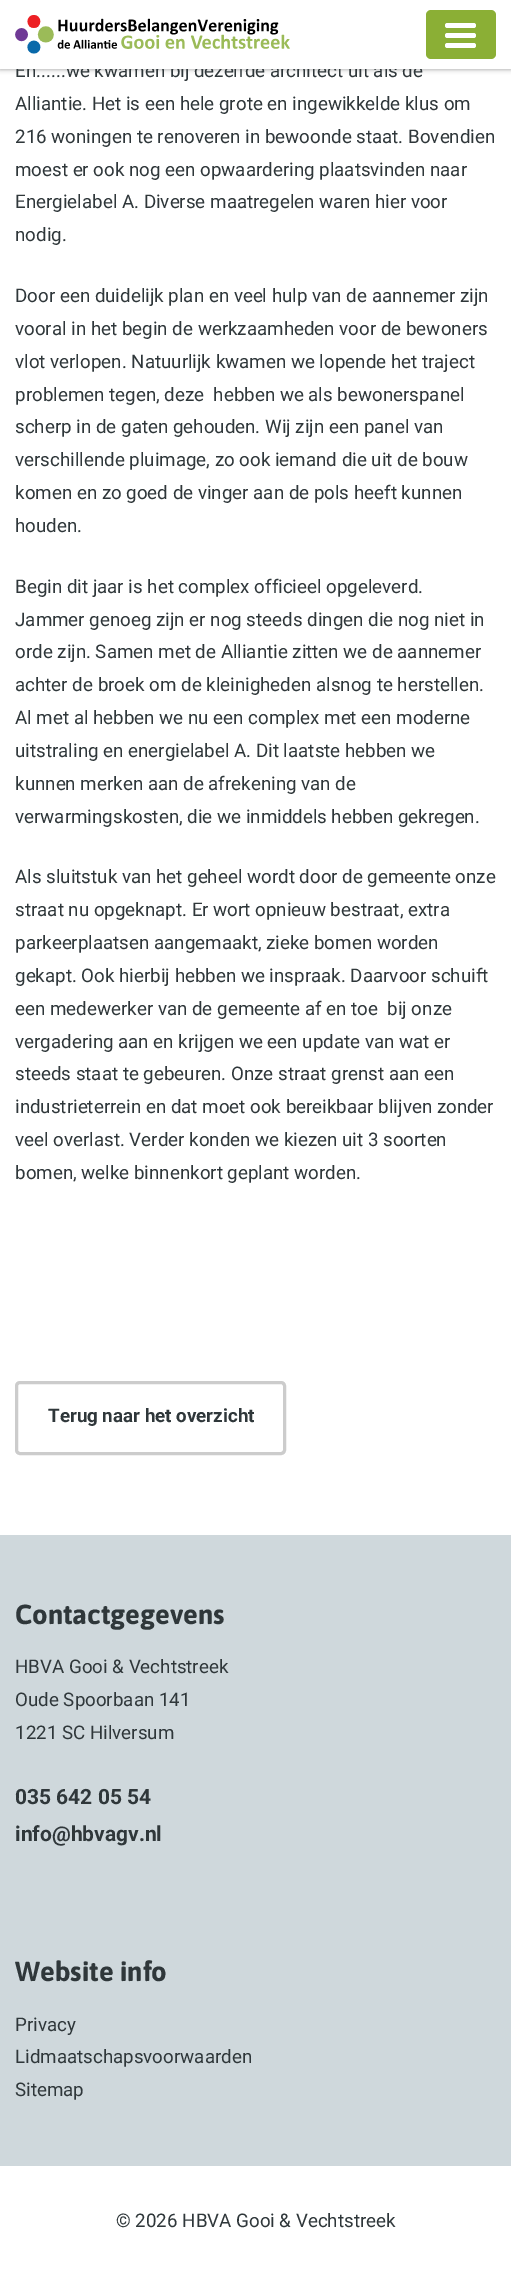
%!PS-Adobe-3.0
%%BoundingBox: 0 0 511 2293
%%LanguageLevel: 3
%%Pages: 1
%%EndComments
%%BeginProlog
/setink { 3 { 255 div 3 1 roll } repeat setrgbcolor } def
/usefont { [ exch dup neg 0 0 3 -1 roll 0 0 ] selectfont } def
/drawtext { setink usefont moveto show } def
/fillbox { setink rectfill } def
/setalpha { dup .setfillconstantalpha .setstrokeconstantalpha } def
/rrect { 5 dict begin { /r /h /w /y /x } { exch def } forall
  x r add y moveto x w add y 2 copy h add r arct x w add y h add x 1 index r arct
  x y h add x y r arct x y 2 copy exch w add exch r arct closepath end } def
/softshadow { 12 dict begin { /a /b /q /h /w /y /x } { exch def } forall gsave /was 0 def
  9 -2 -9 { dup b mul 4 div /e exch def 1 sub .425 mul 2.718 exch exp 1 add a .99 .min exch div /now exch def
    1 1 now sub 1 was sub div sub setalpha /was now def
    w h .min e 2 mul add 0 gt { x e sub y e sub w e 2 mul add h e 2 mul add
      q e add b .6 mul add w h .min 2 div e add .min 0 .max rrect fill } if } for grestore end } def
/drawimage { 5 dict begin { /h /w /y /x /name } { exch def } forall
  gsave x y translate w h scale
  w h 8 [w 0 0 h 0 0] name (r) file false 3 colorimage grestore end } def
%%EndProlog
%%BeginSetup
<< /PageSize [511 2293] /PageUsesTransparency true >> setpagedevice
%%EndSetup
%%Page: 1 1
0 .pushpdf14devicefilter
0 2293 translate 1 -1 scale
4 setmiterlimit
0 0 511 2293 255 255 255 fillbox
0 0 0 setink
0 0 511 69 0 2.5 0.4 softshadow
(En......we kwamen bij dezelfde architect uit als de) 15 77 /Roboto-Regular 18.75 47 55 58 drawtext
0 0 511 69 255 255 255 fillbox
(assets/img1.rgb) 15 15 275 39 drawimage
139 175 53 setink
426 10 70 49 5 rrect fill
255 255 255 setink
445 33 31 5 2.5 rrect fill
445 23 31 5 2.5 rrect fill
445 43 31 5 2.5 rrect fill
(Alliantie. Het is een hele grote en ingewikkelde klus om) 15 110 /Roboto-Regular 18.75 47 55 58 drawtext
(216 woningen te renoveren in bewoonde staat. Bovendien) 15 143 /Roboto-Regular 18.75 47 55 58 drawtext
(moest er ook nog een opwaardering plaatsvinden naar) 15 176 /Roboto-Regular 18.75 47 55 58 drawtext
(Energielabel A. Diverse maatregelen waren hier voor) 15 208 /Roboto-Regular 18.75 47 55 58 drawtext
(nodig.) 15 241 /Roboto-Regular 18.75 47 55 58 drawtext
(Door een duidelijk plan en veel hulp van de aannemer zijn) 15 302 /Roboto-Regular 18.75 47 55 58 drawtext
(vooral in het begin de werkzaamheden voor de bewoners) 15 335 /Roboto-Regular 18.75 47 55 58 drawtext
(vlot verlopen. Natuurlijk kwamen we lopende het traject) 15 368 /Roboto-Regular 18.75 47 55 58 drawtext
(problemen tegen, deze  hebben we als bewonerspanel) 15 401 /Roboto-Regular 18.75 47 55 58 drawtext
(scherp in de gaten gehouden. Wij zijn een panel van) 15 433 /Roboto-Regular 18.75 47 55 58 drawtext
(verschillende pluimage, zo ook iemand die uit de bouw) 15 466 /Roboto-Regular 18.75 47 55 58 drawtext
(komen en zo goed de vinger aan de pols heeft kunnen) 15 499 /Roboto-Regular 18.75 47 55 58 drawtext
(houden.) 15 532 /Roboto-Regular 18.75 47 55 58 drawtext
(Begin dit jaar is het complex officieel opgeleverd.) 15 593 /Roboto-Regular 18.75 47 55 58 drawtext
(Jammer genoeg zijn er nog steeds dingen die nog niet in) 15 626 /Roboto-Regular 18.75 47 55 58 drawtext
(orde zijn. Samen met de Alliantie zitten we de aannemer) 15 658 /Roboto-Regular 18.75 47 55 58 drawtext
(achter de broek om de kleinigheden alsnog te herstellen.) 15 691 /Roboto-Regular 18.75 47 55 58 drawtext
(Al met al hebben we nu een complex met een moderne) 15 724 /Roboto-Regular 18.75 47 55 58 drawtext
(uitstraling en energielabel A. Dit laatste hebben we) 15 757 /Roboto-Regular 18.75 47 55 58 drawtext
(kunnen merken aan de afrekening van de) 15 790 /Roboto-Regular 18.75 47 55 58 drawtext
(verwarmingskosten, die we inmiddels hebben gekregen.) 15 823 /Roboto-Regular 18.75 47 55 58 drawtext
(Als sluitstuk van het geheel wordt door de gemeente onze) 15 883 /Roboto-Regular 18.75 47 55 58 drawtext
(straat nu opgeknapt. Er wort opnieuw bestraat, extra) 15 916 /Roboto-Regular 18.75 47 55 58 drawtext
(parkeerplaatsen aangemaakt, zieke bomen worden) 15 949 /Roboto-Regular 18.75 47 55 58 drawtext
(gekapt. Ook hierbij hebben we inspraak. Daarvoor schuift) 15 982 /Roboto-Regular 18.75 47 55 58 drawtext
(een medewerker van de gemeente af en toe  bij onze) 15 1015 /Roboto-Regular 18.75 47 55 58 drawtext
(vergadering aan en krijgen we een update van wat er) 15 1048 /Roboto-Regular 18.75 47 55 58 drawtext
(steeds staat te gebeuren. Onze straat grenst aan een) 15 1080 /Roboto-Regular 18.75 47 55 58 drawtext
(industrieterrein en dat moet ook bereikbaar blijven zonder) 15 1113 /Roboto-Regular 18.75 47 55 58 drawtext
(veel overlast. Verder konden we kiezen uit 3 soorten) 15 1146 /Roboto-Regular 18.75 47 55 58 drawtext
(bomen, welke binnenkort geplant worden.) 15 1179 /Roboto-Regular 18.75 47 55 58 drawtext
204 204 204 setink
3 setlinewidth
16.5 1382.5 268 71 3.5 rrect stroke
(Terug naar het overzicht) 48 1422 /Roboto-Bold 18.75 47 55 58 drawtext
0 1535 511 631 207 216 220 fillbox
(Contactgegevens) 15 1624 /Asap-Bold 27.5 47 55 58 drawtext
(HBVA Gooi & Vechtstreek) 15 1673 /Roboto-Regular 18.75 47 55 58 drawtext
(Oude Spoorbaan 141) 15 1706 /Roboto-Regular 18.75 47 55 58 drawtext
(1221 SC Hilversum) 15 1739 /Roboto-Regular 18.75 47 55 58 drawtext
(035 642 05 54) 15 1804 /Roboto-Bold 21 47 55 58 drawtext
(info@hbvagv.nl) 15 1841 /Roboto-Bold 21 47 55 58 drawtext
(Website info) 15 1981 /Asap-Bold 27.5 47 55 58 drawtext
(Privacy) 15 2031 /Roboto-Regular 18.75 47 55 58 drawtext
(Lidmaatschapsvoorwaarden) 15 2063 /Roboto-Regular 18.75 47 55 58 drawtext
(Sitemap) 15 2096 /Roboto-Regular 18.75 47 55 58 drawtext
(© 2026 HBVA Gooi & Vechtstreek) 116 2227 /Roboto-Regular 18.75 47 55 58 drawtext
.poppdf14devicefilter showpage
%%EOF
